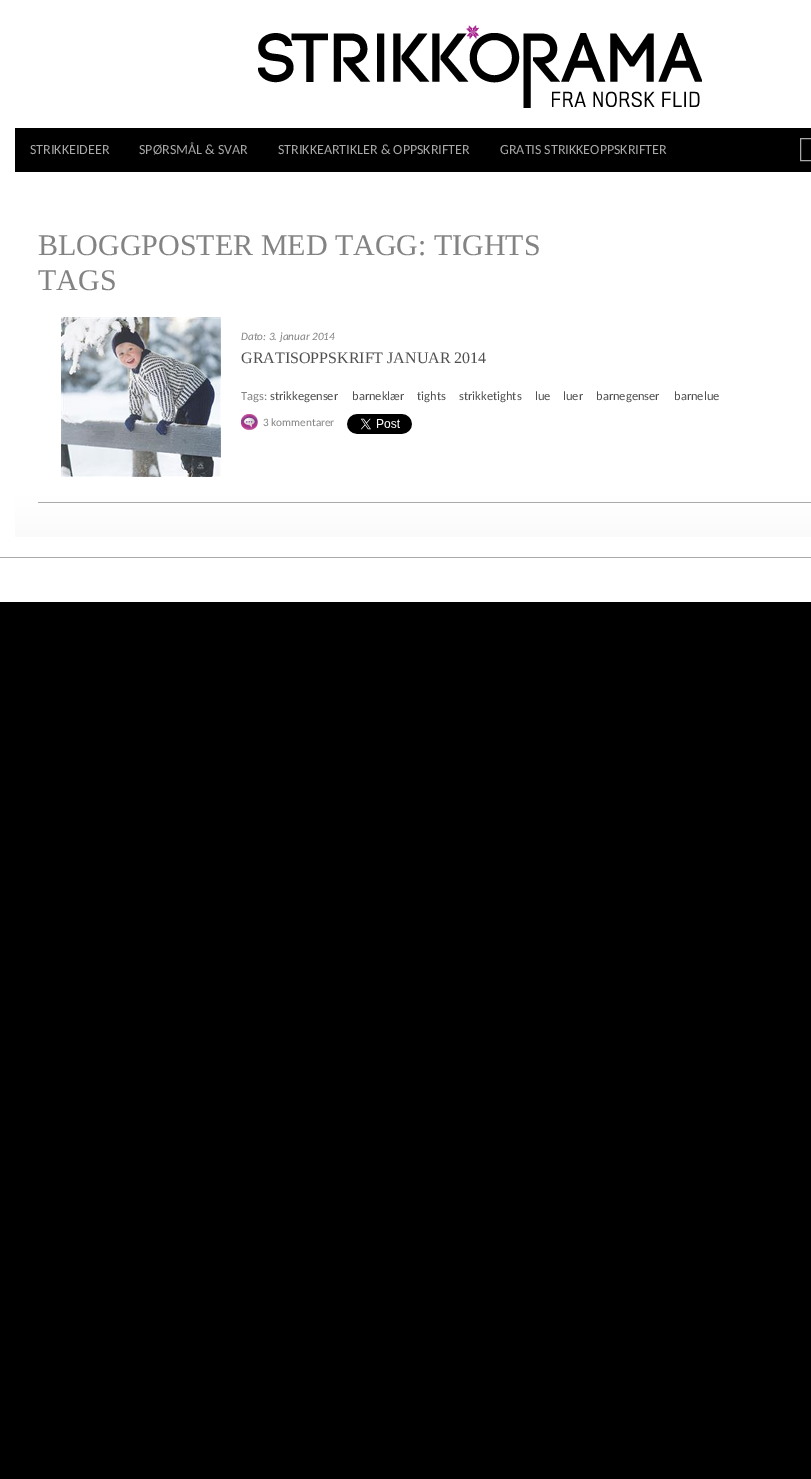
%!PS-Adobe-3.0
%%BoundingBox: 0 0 811 1479
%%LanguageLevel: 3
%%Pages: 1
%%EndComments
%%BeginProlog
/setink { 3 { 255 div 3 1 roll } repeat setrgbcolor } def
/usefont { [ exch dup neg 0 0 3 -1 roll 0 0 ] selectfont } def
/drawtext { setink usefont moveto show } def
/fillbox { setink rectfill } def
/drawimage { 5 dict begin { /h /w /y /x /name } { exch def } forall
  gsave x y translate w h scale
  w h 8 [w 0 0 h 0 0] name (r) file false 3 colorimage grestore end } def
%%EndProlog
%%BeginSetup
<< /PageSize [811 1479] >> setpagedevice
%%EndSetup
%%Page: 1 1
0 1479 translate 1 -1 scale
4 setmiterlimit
0 0 811 1479 0 0 0 fillbox
0 0 811 602 255 255 255 fillbox
(assets/img1.rgb) 15 0 796 537 drawimage
(assets/img2.rgb) 258 25 444 83 drawimage
(assets/img3.rgb) 552 91 148 16 drawimage
15 128 796 44 0 0 0 fillbox
(STRIKKEIDEER) 30 154 /Carlito-Regular 14 169 169 169 drawtext
(SPØRSMÅL & SVAR) 139 154 /Carlito-Regular 14 169 169 169 drawtext
(STRIKKEARTIKLER & OPPSKRIFTER) 278 154 /Carlito-Regular 14 169 169 169 drawtext
(GRATIS STRIKKEOPPSKRIFTER) 500 154 /Carlito-Regular 14 169 169 169 drawtext
800.5 138.5 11 22 rectstroke
(BLOGGPOSTER MED TAGG: TIGHTS) 38 255 /LiberationSerif-Regular 30 131 131 131 drawtext
(TAGS) 38 290 /LiberationSerif-Regular 30 131 131 131 drawtext
(assets/img4.rgb) 61 317 160 160 drawimage
(Dato: 3. januar 2014) 241 340 /Carlito-Italic 11.25 131 131 131 drawtext
(GRATISOPPSKRIFT JANUAR 2014) 241 363 /LiberationSerif-Regular 16 79 79 79 drawtext
(Tags:) 241 400 /Carlito-Regular 12.5 131 131 131 drawtext
(strikkegenser) 270 400 /Carlito-Regular 12.5 79 79 79 drawtext
(barneklær) 352 400 /Carlito-Regular 12.5 79 79 79 drawtext
(tights) 417 400 /Carlito-Regular 12.5 79 79 79 drawtext
(strikketights) 459 400 /Carlito-Regular 12.5 79 79 79 drawtext
(lue) 535 400 /Carlito-Regular 12.5 79 79 79 drawtext
(luer) 563 400 /Carlito-Regular 12.5 79 79 79 drawtext
(barnegenser) 596 400 /Carlito-Regular 12.5 79 79 79 drawtext
(barnelue) 674 400 /Carlito-Regular 12.5 79 79 79 drawtext
(assets/img5.rgb) 241 414 17 16 drawimage
(3 kommentarer) 263 426 /Carlito-Regular 11.25 131 131 131 drawtext
(assets/img6.rgb) 347 414 65 20 drawimage
38 502 773 1 169 169 169 fillbox
0 557 811 1 169 169 169 fillbox
showpage
%%EOF
